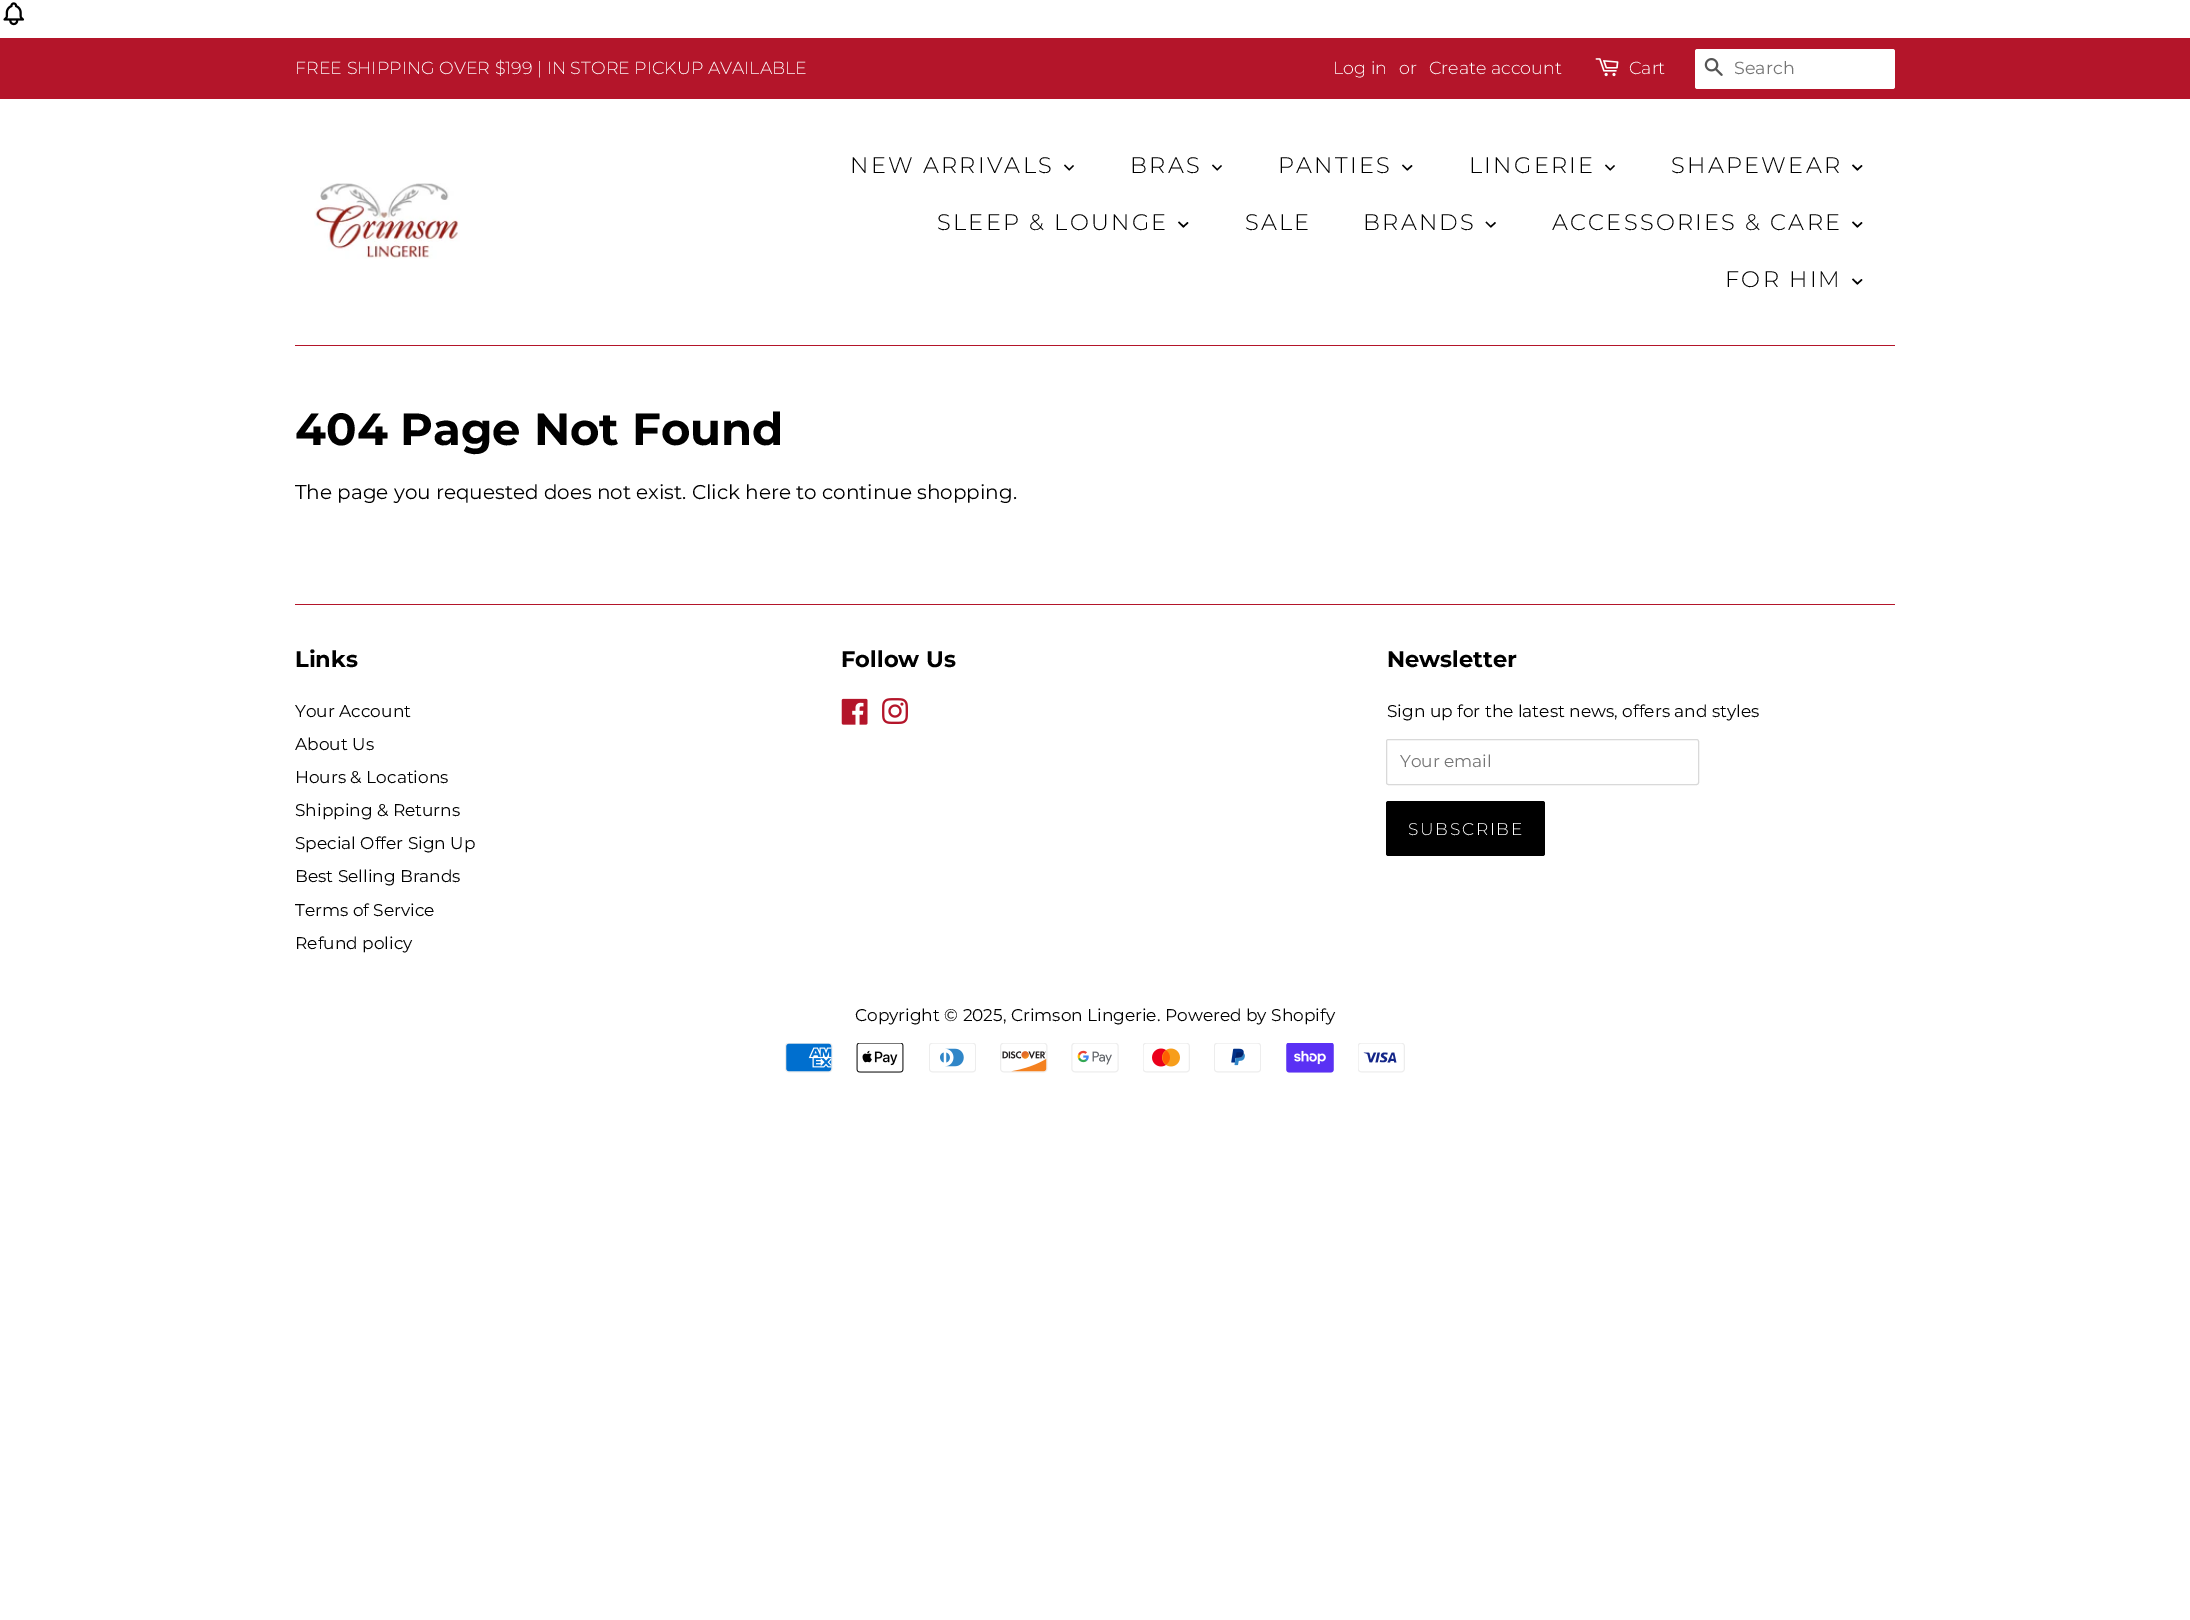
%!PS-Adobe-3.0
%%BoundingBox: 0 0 2190 1620
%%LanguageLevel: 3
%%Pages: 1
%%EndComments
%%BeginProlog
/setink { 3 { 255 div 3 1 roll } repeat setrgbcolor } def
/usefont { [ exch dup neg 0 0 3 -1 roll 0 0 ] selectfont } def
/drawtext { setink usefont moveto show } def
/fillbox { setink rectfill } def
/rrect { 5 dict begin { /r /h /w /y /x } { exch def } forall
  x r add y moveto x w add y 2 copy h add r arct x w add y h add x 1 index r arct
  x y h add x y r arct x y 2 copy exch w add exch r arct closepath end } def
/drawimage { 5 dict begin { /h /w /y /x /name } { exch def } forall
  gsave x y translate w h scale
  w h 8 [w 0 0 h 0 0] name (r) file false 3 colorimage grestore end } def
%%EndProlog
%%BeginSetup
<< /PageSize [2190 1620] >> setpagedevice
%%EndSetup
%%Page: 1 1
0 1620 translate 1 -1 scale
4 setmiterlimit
0 0 2190 1620 255 255 255 fillbox
(assets/img1.rgb) 3 2 22 24 drawimage
0 38 2190 61 180 21 42 fillbox
(FREE SHIPPING OVER $199 | IN STORE PICKUP AVAILABLE) 295 74 /Montserrat-Light 17.5 255 255 255 drawtext
(Log in) 1333 74 /Montserrat-Light 17.5 255 255 255 drawtext
(or) 1399 74 /Montserrat-Light 17.5 255 255 255 drawtext
(Create account) 1429 74 /Montserrat-Light 17.5 255 255 255 drawtext
(assets/img2.rgb) 1595 58 24 19 drawimage
(Cart) 1629 74 /Montserrat-Light 17.5 255 255 255 drawtext
1695 49 200 40 2.5 rrect fill
(assets/img3.rgb) 1704 58 19 18 drawimage
(Search) 1734 74 /Montserrat-Regular 17.5 117 117 117 drawtext
295 345 1600 1 180 21 42 fillbox
(assets/img4.rgb) 314 183 146 76 drawimage
/Montserrat-Light 22.5 usefont
0 0 0 setink
850 173 moveto 2.25 0 (NEW ARRIVALS) ashow
1073 165 moveto 1074 166 lineto 1069.5 170.5 lineto 1068.5 169.5 lineto closepath fill
1065 164.5 moveto 1070 169.5 lineto 1069 170.5 lineto 1064 165.5 lineto closepath fill
1130 173 moveto 2.25 0 (BRAS) ashow
1221 165 moveto 1222 166 lineto 1217.5 170.5 lineto 1216.5 169.5 lineto closepath fill
1213 164.5 moveto 1218 169.5 lineto 1217 170.5 lineto 1212 165.5 lineto closepath fill
1278 173 moveto 2.25 0 (PANTIES) ashow
1411.5 165 moveto 1412.5 166 lineto 1407.5 170.5 lineto 1406.5 169.5 lineto closepath fill
1403 164.5 moveto 1408 169.5 lineto 1407 170.5 lineto 1402 165.5 lineto closepath fill
1469 173 moveto 2.25 0 (LINGERIE) ashow
1614 165 moveto 1615 166 lineto 1610.5 170.5 lineto 1609.5 169.5 lineto closepath fill
1606 164.5 moveto 1611 169.5 lineto 1610 170.5 lineto 1605 165.5 lineto closepath fill
1671 173 moveto 2.25 0 (SHAPEWEAR) ashow
1861.5 165 moveto 1862.5 166 lineto 1857.5 170.5 lineto 1856.5 169.5 lineto closepath fill
1853 164.5 moveto 1858.5 169.5 lineto 1857 170.5 lineto 1852 165.5 lineto closepath fill
937 230 moveto 2.25 0 (SLEEP & LOUNGE) ashow
1187.5 222 moveto 1188.5 223 lineto 1183.5 227.5 lineto 1182.5 226.5 lineto closepath fill
1179 221.5 moveto 1184.5 226.5 lineto 1183 227.5 lineto 1178 222.5 lineto closepath fill
1245 230 moveto 2.25 0 (SALE) ashow
1363 230 moveto 2.25 0 (BRANDS) ashow
1495 222 moveto 1496 223 lineto 1491 227.5 lineto 1490 226.5 lineto closepath fill
1486.5 221.5 moveto 1491.5 226.5 lineto 1490.5 227.5 lineto 1485.5 222.5 lineto closepath fill
1552 230 moveto 2.25 0 (ACCESSORIES & CARE) ashow
1861.5 222 moveto 1862.5 223 lineto 1857.5 227.5 lineto 1856.5 226.5 lineto closepath fill
1853 221.5 moveto 1858.5 226.5 lineto 1857 227.5 lineto 1852 222.5 lineto closepath fill
1725 287 moveto 2.25 0 (FOR HIM) ashow
1861.5 279 moveto 1862.5 280 lineto 1857.5 284.5 lineto 1856.5 283.5 lineto closepath fill
1853 278.5 moveto 1858.5 283.5 lineto 1857 284.5 lineto 1852 279.5 lineto closepath fill
(404 Page Not Found) 295 445 /Montserrat-Bold 45 0 0 0 drawtext
(The page you requested does not exist. Click here to continue shopping.) 295 499 /Montserrat-Regular 20 0 0 0 drawtext
295 604 1600 1 180 21 42 fillbox
(Links) 295 667 /Montserrat-Bold 22.5 0 0 0 drawtext
(Your Account) 295 717 /Montserrat-Regular 17 0 0 0 drawtext
(About Us) 295 750 /Montserrat-Regular 17 0 0 0 drawtext
(Hours & Locations) 295 783 /Montserrat-Regular 17 0 0 0 drawtext
(Shipping & Returns) 295 816 /Montserrat-Regular 17 0 0 0 drawtext
(Special Offer Sign Up) 295 849 /Montserrat-Regular 17 0 0 0 drawtext
(Best Selling Brands) 295 882 /Montserrat-Regular 17 0 0 0 drawtext
(Terms of Service) 295 916 /Montserrat-Regular 17 0 0 0 drawtext
(Refund policy) 295 949 /Montserrat-Regular 17 0 0 0 drawtext
(Follow Us) 841 667 /Montserrat-Bold 22.5 0 0 0 drawtext
(assets/img5.rgb) 841 698 27 27 drawimage
(assets/img6.rgb) 882 698 26 26 drawimage
(Newsletter) 1387 667 /Montserrat-Bold 22.5 0 0 0 drawtext
(Sign up for the latest news, offers and styles) 1387 717 /Montserrat-Regular 17 0 0 0 drawtext
217 217 217 setink
1386.5 739.5 312 45 2 rrect stroke
(Your email) 1400 767 /Montserrat-Regular 17 117 117 117 drawtext
0 0 0 setink
1386 801 159 55 2.5 rrect fill
/Montserrat-Light 17 usefont
255 255 255 setink
1408 835 moveto 1.75 0 (SUBSCRIBE) ashow
(Copyright © 2025, Crimson Lingerie. Powered by Shopify) 855 1021 /Montserrat-Regular 17 0 0 0 drawtext
(assets/img7.rgb) 785 1043 48 30 drawimage
(assets/img8.rgb) 856 1043 48 30 drawimage
(assets/img9.rgb) 929 1043 47 30 drawimage
(assets/img10.rgb) 1000 1043 48 30 drawimage
(assets/img11.rgb) 1071 1043 48 30 drawimage
(assets/img12.rgb) 1143 1043 47 30 drawimage
(assets/img13.rgb) 1214 1043 47 30 drawimage
(assets/img14.rgb) 1286 1043 48 30 drawimage
(assets/img15.rgb) 1358 1043 47 30 drawimage
showpage
%%EOF
